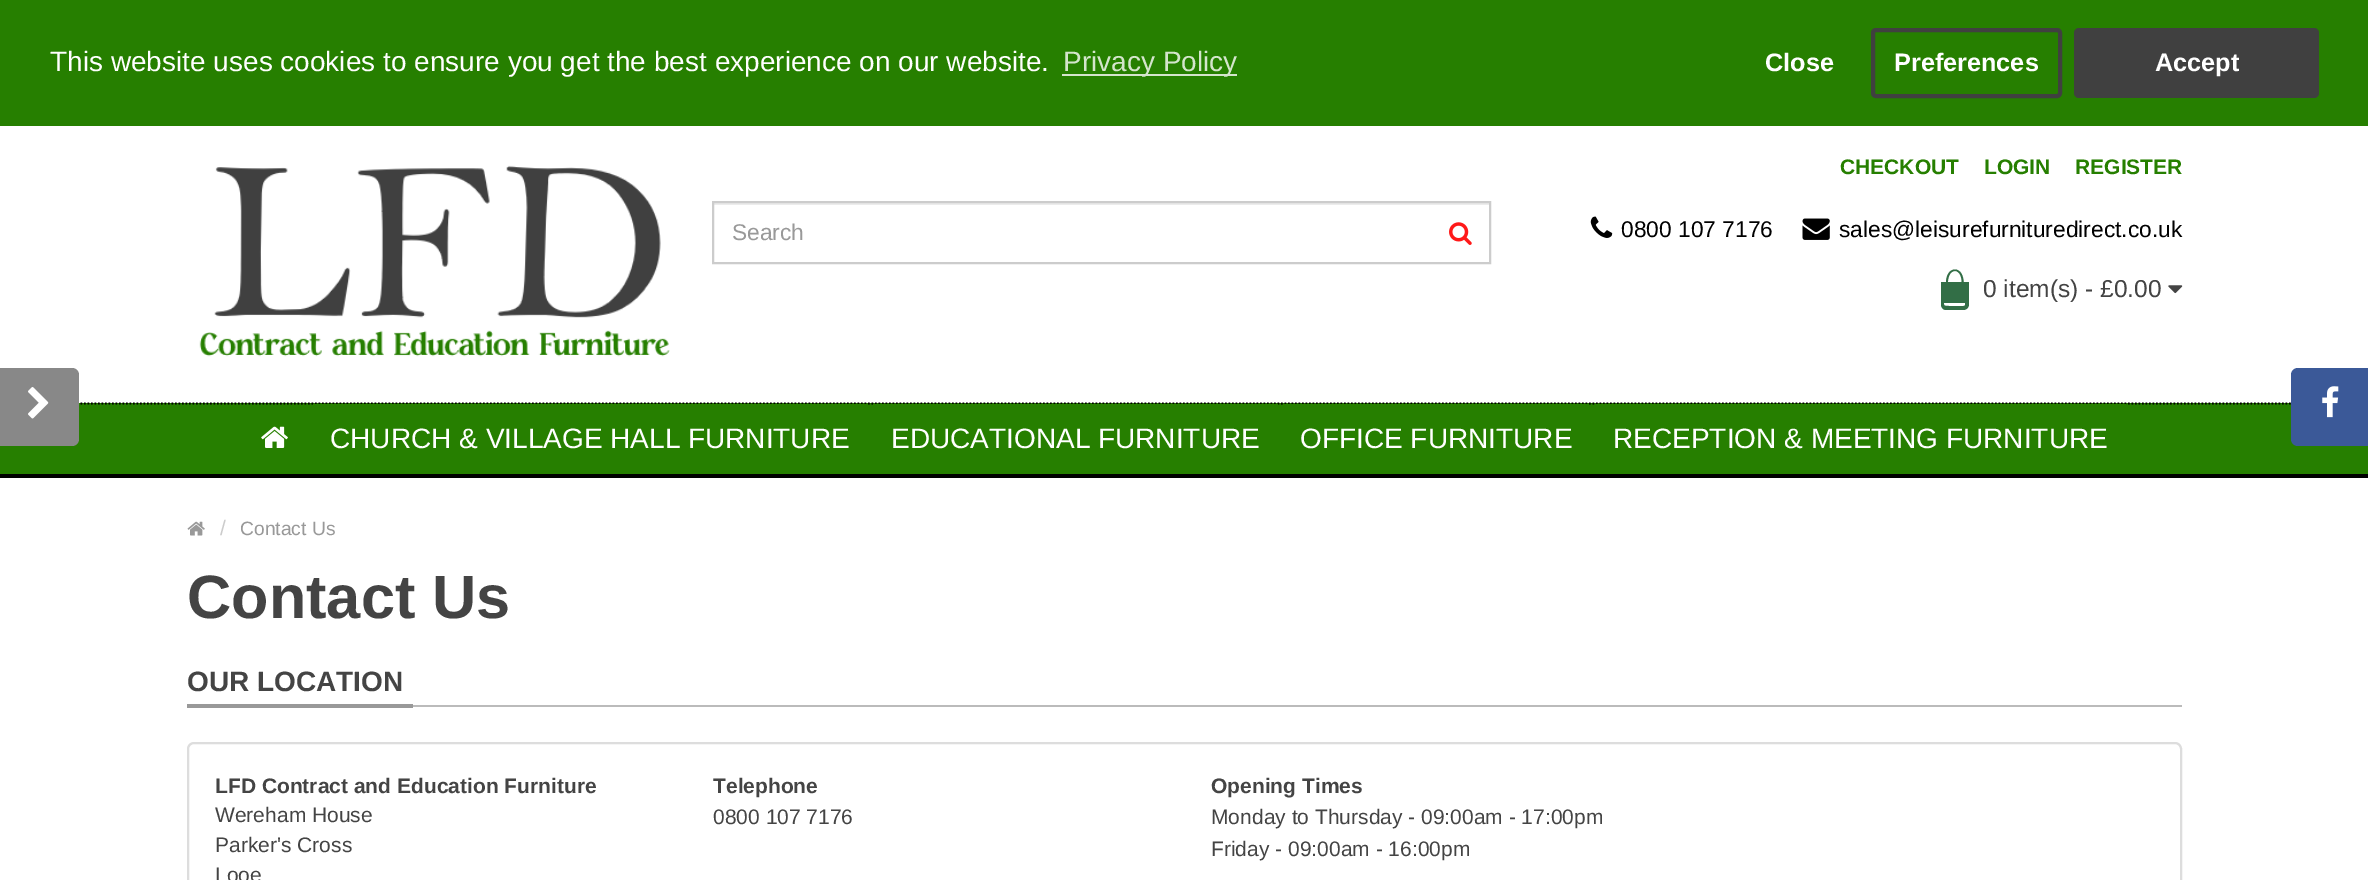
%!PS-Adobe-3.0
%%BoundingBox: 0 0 2368 880
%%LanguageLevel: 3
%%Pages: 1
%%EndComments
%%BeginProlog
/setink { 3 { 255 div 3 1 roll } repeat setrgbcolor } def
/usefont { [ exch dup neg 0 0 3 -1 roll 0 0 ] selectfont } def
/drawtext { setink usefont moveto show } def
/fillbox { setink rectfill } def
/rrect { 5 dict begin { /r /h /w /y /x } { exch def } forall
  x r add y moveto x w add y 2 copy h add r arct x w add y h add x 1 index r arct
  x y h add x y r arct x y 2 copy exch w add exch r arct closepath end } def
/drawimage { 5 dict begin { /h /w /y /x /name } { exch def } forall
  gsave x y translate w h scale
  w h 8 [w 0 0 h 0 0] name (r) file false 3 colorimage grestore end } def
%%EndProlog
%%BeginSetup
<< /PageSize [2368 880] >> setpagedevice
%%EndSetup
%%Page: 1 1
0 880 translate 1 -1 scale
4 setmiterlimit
0 0 2368 880 255 255 255 fillbox
0 0 2368 126 38 127 0 fillbox
(This website uses cookies to ensure you get the best experience on our website.) 50 71 /LiberationSans-Regular 28 255 255 255 drawtext
1062 74 175 2 212 229 204 fillbox
(Privacy Policy) 1063 71 /LiberationSans-Regular 28 212 229 204 drawtext
(Close) 1765 71 /LiberationSans-Bold 25.25 255 255 255 drawtext
64 64 64 setink
4 setlinewidth
1873 30 187 66 3 rrect stroke
(Preferences) 1894 71 /LiberationSans-Bold 25.25 255 255 255 drawtext
64 64 64 setink
2074 28 245 70 5 rrect fill
(Accept) 2155 71 /LiberationSans-Bold 25.25 255 255 255 drawtext
0 403 2368 71 38 127 0 fillbox
0 0 0 setink
1.8 setlinewidth
[1.75 1.75] 0 setdash
0 403.5 moveto 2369.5 403.5 lineto stroke
136 136 136 setink
0 368 moveto 72 368 lineto 76 368 79 371 79 375 curveto 79 439 lineto 79 443 76 446 72 446 curveto 0 446 lineto closepath fill
(assets/img1.rgb) 28 387 21 32 drawimage
(assets/img2.rgb) 199 165 471 192 drawimage
(CHECKOUT) 1840 174 /LiberationSans-Bold 21 38 127 0 drawtext
(LOGIN) 1984 174 /LiberationSans-Bold 21 38 127 0 drawtext
(REGISTER) 2075 174 /LiberationSans-Bold 21 38 127 0 drawtext
714 203 775 2 236 236 236 fillbox
204 204 204 setink
2 setlinewidth
[] 0 setdash
713 202 777 61 rectstroke
(Search) 732 240 /LiberationSans-Regular 22.75 153 153 153 drawtext
(assets/img3.rgb) 1449 222 23 23 drawimage
(assets/img4.rgb) 1590 216 23 22 drawimage
(0800 107 7176) 1621 237 /LiberationSans-Regular 22.75 0 0 0 drawtext
(assets/img5.rgb) 1802 218 28 22 drawimage
(sales@leisurefurnituredirect.co.uk) 1839 237 /LiberationSans-Regular 22.75 0 0 0 drawtext
1941 282 28 21 50 110 70 fillbox
1955 269.5 moveto 1966.5 269.5 1966.5 296 1955 296 curveto 1943 296 1943 269.5 1955 269.5 curveto closepath 1955 271 moveto 1964.5 271 1963.5 296 1955 296 curveto 1946 296 1945 271 1955 271 curveto closepath eofill
1946 294 moveto 1963.5 294 lineto 1966.5 294 1969 296.5 1969 299 curveto 1969 304.5 lineto 1969 307.5 1966.5 310 1963.5 310 curveto 1946 310 lineto 1943 310 1941 307.5 1941 304.5 curveto 1941 299 lineto 1941 296.5 1943 294 1946 294 curveto closepath 1946 294 moveto 1964 294 lineto 1965.5 295 1965 300 1965 302 curveto 1965 303.5 1966 306 1963.5 306 curveto 1949 306 lineto 1943 306 1944 305.5 1944 300 curveto 1944 299 1944.5 294 1946 294 curveto closepath eofill
(0 item\(s\) - £0.00) 1983 297 /LiberationSans-Regular 24.5 68 68 68 drawtext
(assets/img6.rgb) 2168 285 15 9 drawimage
0 474 2368 4 0 0 0 fillbox
(assets/img7.rgb) 261 426 27 22 drawimage
313 404 554 1 38 127 0 fillbox
(CHURCH & VILLAGE HALL FURNITURE) 330 448 /LiberationSans-Regular 28 255 255 255 drawtext
873 404 405 1 38 127 0 fillbox
(EDUCATIONAL FURNITURE) 891 448 /LiberationSans-Regular 28 255 255 255 drawtext
1284 404 304 1 38 127 0 fillbox
(OFFICE FURNITURE) 1300 448 /LiberationSans-Regular 28 255 255 255 drawtext
1596 404 530 1 38 127 0 fillbox
(RECEPTION & MEETING FURNITURE) 1613 448 /LiberationSans-Regular 28 255 255 255 drawtext
59 89 152 setink
2298 368 moveto 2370 368 lineto 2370 446 lineto 2298 446 lineto 2294 446 2291 443 2291 439 curveto 2291 375 lineto 2291 371 2294 368 2298 368 curveto closepath fill
(assets/img8.rgb) 2322 386 17 32 drawimage
(assets/img9.rgb) 187 521 18 15 drawimage
(/) 220 535 /LiberationSans-Regular 21 204 204 204 drawtext
(Contact Us) 240 535 /LiberationSans-Regular 19.25 153 153 153 drawtext
(Contact Us) 187 618 /LiberationSans-Bold 61.25 68 68 68 drawtext
413 705 1769 2 187 187 187 fillbox
187 704 226 4 153 153 153 fillbox
(OUR LOCATION) 187 691 /LiberationSans-Bold 28 68 68 68 drawtext
221 221 221 setink
188 743 1993 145 6 rrect stroke
(LFD Contract and Education Furniture) 215 793 /LiberationSans-Bold 21 68 68 68 drawtext
(Wereham House) 215 822 /LiberationSans-Regular 21 68 68 68 drawtext
(Parker's Cross) 215 852 /LiberationSans-Regular 21 68 68 68 drawtext
(Looe) 215 882 /LiberationSans-Regular 21 68 68 68 drawtext
(Telephone) 713 793 /LiberationSans-Bold 21 68 68 68 drawtext
(0800 107 7176) 713 824 /LiberationSans-Regular 21 68 68 68 drawtext
(Opening Times) 1211 793 /LiberationSans-Bold 21 68 68 68 drawtext
(Monday to Thursday - 09:00am - 17:00pm) 1211 824 /LiberationSans-Regular 21 68 68 68 drawtext
(Friday - 09:00am - 16:00pm) 1211 856 /LiberationSans-Regular 21 68 68 68 drawtext
showpage
%%EOF
